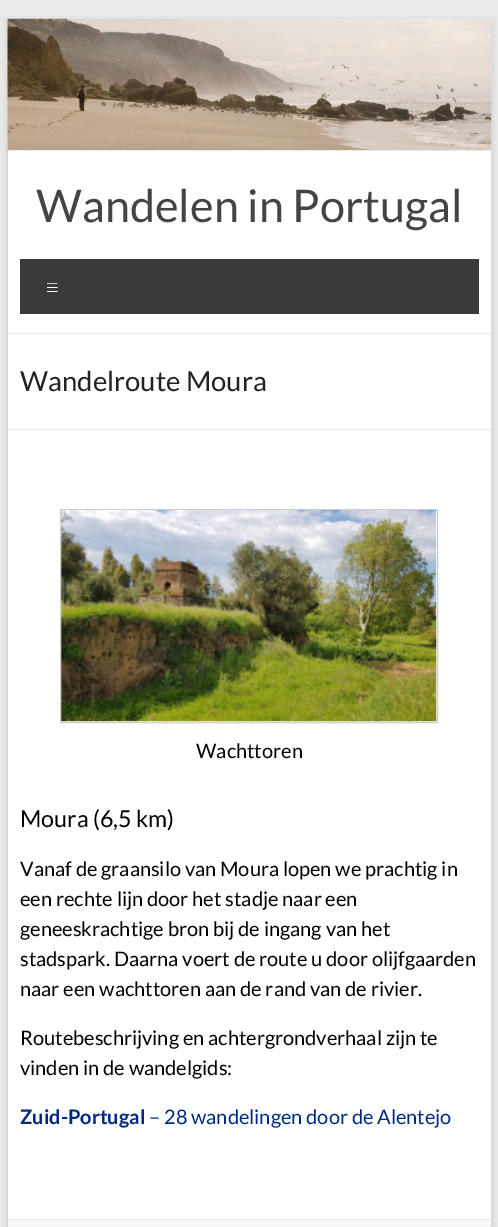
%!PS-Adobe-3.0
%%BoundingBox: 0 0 498 1227
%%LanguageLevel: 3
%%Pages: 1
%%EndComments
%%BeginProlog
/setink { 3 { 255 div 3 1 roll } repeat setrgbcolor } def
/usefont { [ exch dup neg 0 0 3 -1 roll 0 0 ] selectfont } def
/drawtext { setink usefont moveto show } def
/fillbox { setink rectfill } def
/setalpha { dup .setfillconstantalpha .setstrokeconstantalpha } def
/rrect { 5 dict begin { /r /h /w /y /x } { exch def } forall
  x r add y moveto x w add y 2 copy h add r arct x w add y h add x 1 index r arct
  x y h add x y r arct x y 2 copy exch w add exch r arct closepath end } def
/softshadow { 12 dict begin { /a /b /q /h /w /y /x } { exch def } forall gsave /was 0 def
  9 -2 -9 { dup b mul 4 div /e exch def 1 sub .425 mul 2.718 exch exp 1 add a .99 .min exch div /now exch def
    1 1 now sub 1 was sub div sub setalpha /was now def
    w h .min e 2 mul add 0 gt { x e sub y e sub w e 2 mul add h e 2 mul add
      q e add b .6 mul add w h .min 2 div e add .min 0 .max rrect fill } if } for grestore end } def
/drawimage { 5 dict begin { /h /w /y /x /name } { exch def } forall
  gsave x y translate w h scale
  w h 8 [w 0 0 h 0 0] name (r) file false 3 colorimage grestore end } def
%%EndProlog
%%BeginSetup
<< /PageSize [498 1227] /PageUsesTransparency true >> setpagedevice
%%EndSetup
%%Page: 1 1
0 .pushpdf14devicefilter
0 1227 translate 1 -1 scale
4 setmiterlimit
0 0 498 1227 234 234 234 fillbox
100 100 100 setink
8 21 483 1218 0 4 0.3 softshadow
8 151 483 1068 255 255 255 fillbox
(assets/img1.rgb) 7 18 485 132 drawimage
8 150 483 1 234 234 234 fillbox
8 333 483 1 234 234 234 fillbox
(Wandelen in Portugal) 36 222 /Lato-Regular 45 68 68 68 drawtext
20 259 459 55 58 58 58 fillbox
(≡) 45 296 /Lato-Light 25 255 255 255 drawtext
8 429 483 1 234 234 234 fillbox
(Wandelroute Moura) 20 391 /Lato-Regular 27.5 34 34 34 drawtext
204 204 204 setink
60.5 509.5 377 213 rectstroke
(assets/img2.rgb) 61 510 376 212 drawimage
(Wachttoren) 196 758 /Lato-Regular 20 0 0 0 drawtext
(Moura \(6,5 km\)) 20 827 /Lato-Regular 23.25 0 0 0 drawtext
(Vanaf de graansilo van Moura lopen we prachtig in) 20 876 /Lato-Regular 20 0 0 0 drawtext
(een rechte lijn door het stadje naar een) 20 906 /Lato-Regular 20 0 0 0 drawtext
(geneeskrachtige bron bij de ingang van het) 20 936 /Lato-Regular 20 0 0 0 drawtext
(stadspark. Daarna voert de route u door olijfgaarden) 20 966 /Lato-Regular 20 0 0 0 drawtext
(naar een wachttoren aan de rand van de rivier.) 20 996 /Lato-Regular 20 0 0 0 drawtext
(Routebeschrijving en achtergrondverhaal zijn te) 20 1045 /Lato-Regular 20 0 0 0 drawtext
(vinden in de wandelgids:) 20 1075 /Lato-Regular 20 0 0 0 drawtext
(Zuid-Portugal) 20 1124 /Lato-Bold 20 0 41 132 drawtext
(– 28 wandelingen door de Alentejo) 149 1124 /Lato-Regular 20 0 41 132 drawtext
8 1220 483 7 248 248 248 fillbox
8 1219 483 1 234 234 234 fillbox
.poppdf14devicefilter showpage
%%EOF
